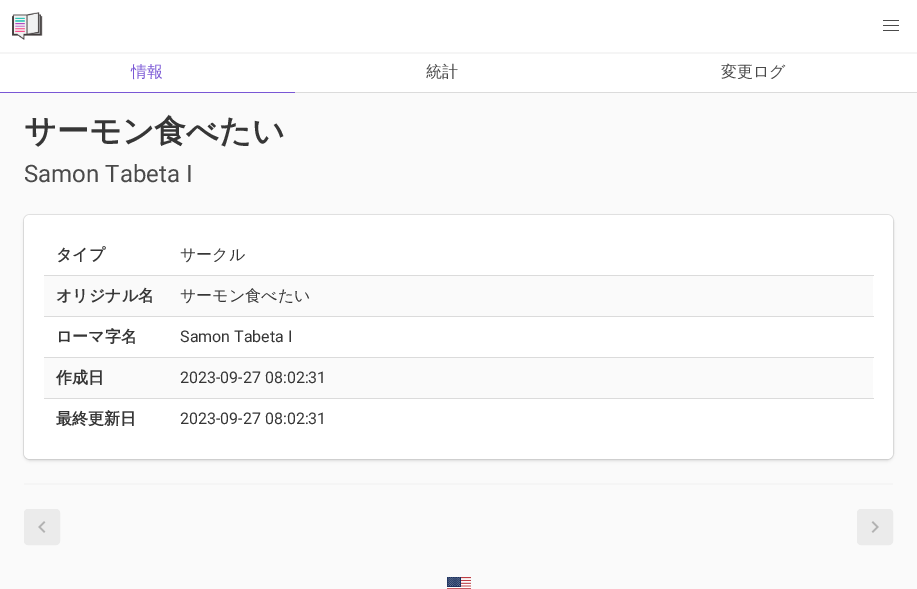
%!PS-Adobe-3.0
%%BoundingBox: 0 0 917 589
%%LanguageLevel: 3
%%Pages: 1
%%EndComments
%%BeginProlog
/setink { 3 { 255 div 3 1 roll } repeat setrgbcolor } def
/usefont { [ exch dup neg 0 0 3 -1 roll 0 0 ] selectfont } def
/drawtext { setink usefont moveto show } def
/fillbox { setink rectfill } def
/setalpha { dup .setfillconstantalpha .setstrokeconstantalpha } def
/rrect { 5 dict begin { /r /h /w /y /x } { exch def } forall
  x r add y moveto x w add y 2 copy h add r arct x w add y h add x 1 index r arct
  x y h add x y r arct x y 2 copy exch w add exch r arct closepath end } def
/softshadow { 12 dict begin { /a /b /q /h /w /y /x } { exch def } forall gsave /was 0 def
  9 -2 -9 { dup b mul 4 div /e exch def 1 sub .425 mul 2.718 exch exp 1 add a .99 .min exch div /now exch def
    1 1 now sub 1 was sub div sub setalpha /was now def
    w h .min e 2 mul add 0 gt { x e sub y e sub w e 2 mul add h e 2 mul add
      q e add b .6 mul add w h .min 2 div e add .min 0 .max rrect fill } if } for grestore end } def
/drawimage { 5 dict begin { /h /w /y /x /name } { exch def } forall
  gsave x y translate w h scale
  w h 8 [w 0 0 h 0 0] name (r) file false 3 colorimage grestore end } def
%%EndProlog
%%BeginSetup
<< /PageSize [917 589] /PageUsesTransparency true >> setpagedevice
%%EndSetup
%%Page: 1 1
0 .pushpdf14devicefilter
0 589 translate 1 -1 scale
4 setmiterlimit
0 0 917 589 250 250 250 fillbox
0 52 917 2 245 245 245 fillbox
0 0 917 52 255 255 255 fillbox
(assets/img1.rgb) 12 12 31 28 drawimage
883 20 16 1 74 74 74 fillbox
883 25 16 1 74 74 74 fillbox
883 30 16 1 74 74 74 fillbox
0 54 917 38 255 255 255 fillbox
295 92 622 1 219 219 219 fillbox
0 92 295 1 121 87 213 fillbox
(情報) 131 77 /WenQuanYiZenHei-Medium 16 121 87 213 drawtext
(統計) 426 77 /WenQuanYiZenHei-Medium 16 74 74 74 drawtext
(変更ログ) 721 77 /WenQuanYiZenHei-Medium 16 74 74 74 drawtext
(サーモン食べたい) 24 142 /WenQuanYiZenHei-Bold 32 54 54 54 drawtext
(Samon Tabeta I) 24 182 /Roboto-Regular 24 74 74 74 drawtext
226 226 226 setink
23.5 214.5 870 245 6.5 rrect stroke
10 10 10 setink
24 217 869 244 6 1.5 0.1 softshadow
255 255 255 setink
24 215 869 244 6 rrect fill
(タイプ) 56 260 /WenQuanYiZenHei-Bold 16 54 54 54 drawtext
44 275 830 1 219 219 219 fillbox
(サークル) 180 260 /WenQuanYiZenHei-Medium 16 54 54 54 drawtext
44 276 829 40 250 250 250 fillbox
(オリジナル名) 56 301 /WenQuanYiZenHei-Bold 16 54 54 54 drawtext
44 316 830 1 219 219 219 fillbox
(サーモン食べたい) 180 301 /WenQuanYiZenHei-Medium 16 54 54 54 drawtext
(ローマ字名) 56 342 /WenQuanYiZenHei-Bold 16 54 54 54 drawtext
44 357 830 1 219 219 219 fillbox
(Samon Tabeta I) 180 342 /Roboto-Regular 16 54 54 54 drawtext
44 358 829 40 250 250 250 fillbox
(作成日) 56 383 /WenQuanYiZenHei-Bold 16 54 54 54 drawtext
44 398 830 1 219 219 219 fillbox
(2023-09-27 08:02:31) 180 383 /Roboto-Regular 16 54 54 54 drawtext
(最終更新日) 56 424 /WenQuanYiZenHei-Bold 16 54 54 54 drawtext
(2023-09-27 08:02:31) 180 424 /Roboto-Regular 16 54 54 54 drawtext
24 483 869 2 245 245 245 fillbox
235 235 235 setink
24.5 509.5 35 35 3.5 rrect gsave fill grestore
stroke
(assets/img2.rgb) 38 521 8 12 drawimage
857.5 509.5 35 35 3.5 rrect gsave fill grestore
stroke
(assets/img3.rgb) 871 521 8 12 drawimage
(assets/img4.rgb) 447 577 24 12 drawimage
.poppdf14devicefilter showpage
%%EOF
